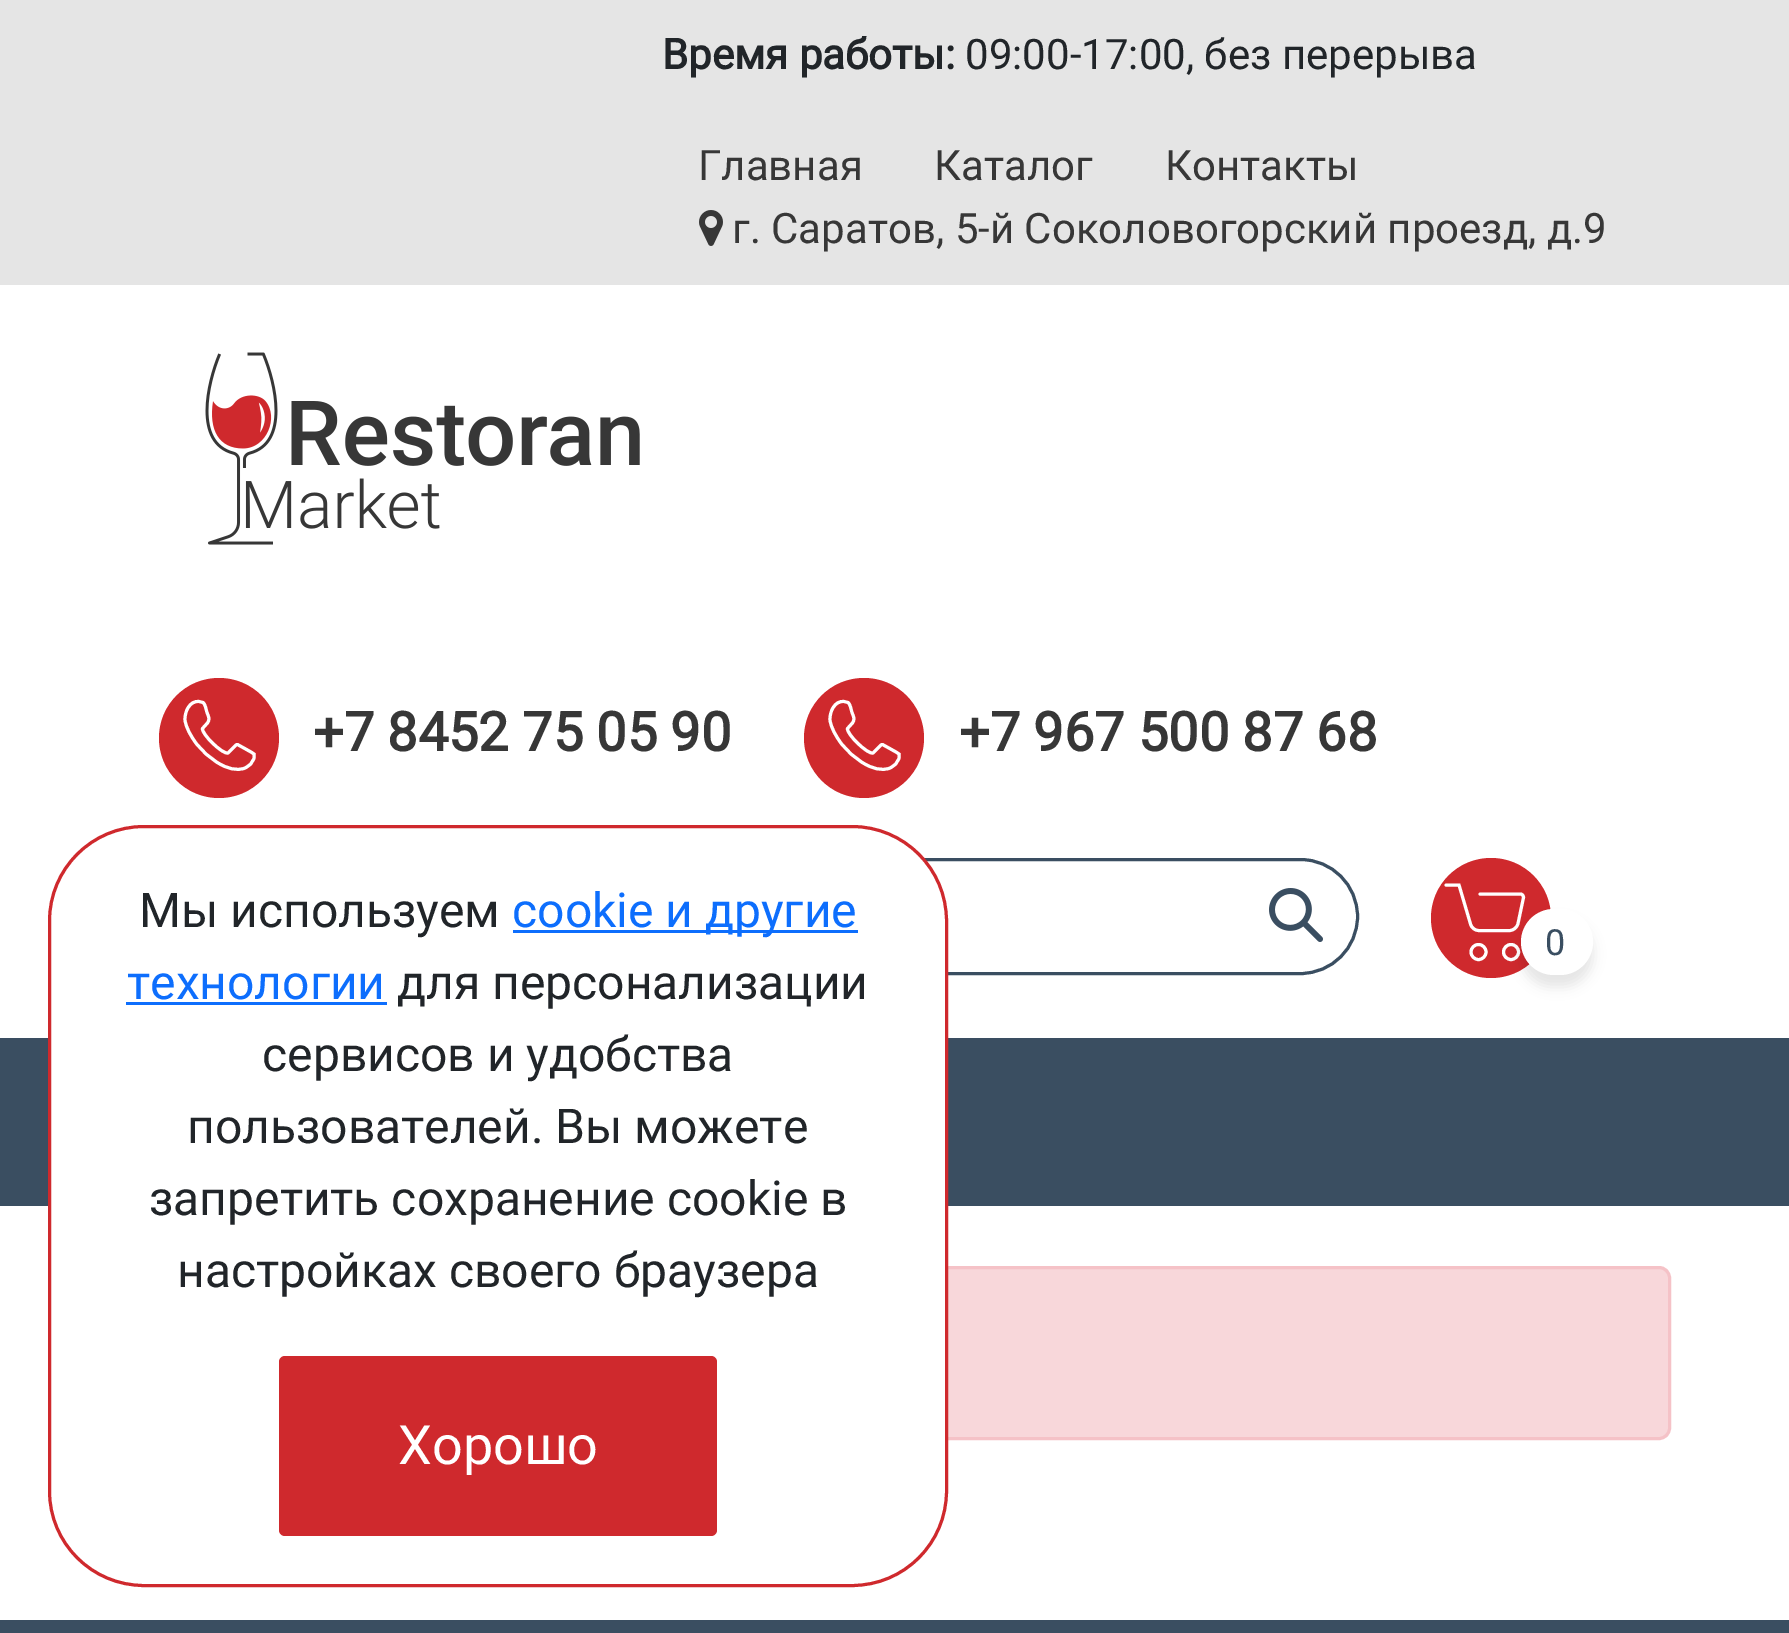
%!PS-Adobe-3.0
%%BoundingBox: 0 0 1789 1633
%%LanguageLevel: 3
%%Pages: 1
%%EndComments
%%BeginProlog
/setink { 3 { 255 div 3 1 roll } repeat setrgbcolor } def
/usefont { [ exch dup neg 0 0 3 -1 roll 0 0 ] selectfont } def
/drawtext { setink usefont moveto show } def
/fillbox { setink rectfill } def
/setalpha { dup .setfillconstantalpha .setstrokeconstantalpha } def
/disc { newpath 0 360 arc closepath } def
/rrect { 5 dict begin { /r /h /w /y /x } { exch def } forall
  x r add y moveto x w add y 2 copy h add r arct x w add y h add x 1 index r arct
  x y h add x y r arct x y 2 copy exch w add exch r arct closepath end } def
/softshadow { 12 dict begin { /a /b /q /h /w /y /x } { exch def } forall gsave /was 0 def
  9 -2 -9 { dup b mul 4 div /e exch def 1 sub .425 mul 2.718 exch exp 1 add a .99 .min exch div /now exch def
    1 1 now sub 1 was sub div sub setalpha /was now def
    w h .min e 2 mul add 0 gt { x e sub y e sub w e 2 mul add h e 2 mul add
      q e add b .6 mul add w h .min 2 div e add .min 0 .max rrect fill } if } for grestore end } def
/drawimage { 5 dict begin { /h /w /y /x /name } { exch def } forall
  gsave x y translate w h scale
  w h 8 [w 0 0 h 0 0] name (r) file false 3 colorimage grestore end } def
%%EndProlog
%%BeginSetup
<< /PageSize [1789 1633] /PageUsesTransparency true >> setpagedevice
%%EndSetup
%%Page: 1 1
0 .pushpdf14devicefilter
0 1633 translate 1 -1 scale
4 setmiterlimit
0 0 1789 1633 255 255 255 fillbox
0 0 1789 285 229 229 229 fillbox
(Время работы:) 662 69 /Roboto-Bold 42 33 37 41 drawtext
(09:00-17:00, без перерыва) 965 69 /Roboto-Regular 42 33 37 41 drawtext
(Главная) 698 180 /Roboto-Regular 42 55 55 55 drawtext
(Каталог) 934 180 /Roboto-Regular 42 55 55 55 drawtext
(Контакты) 1165 180 /Roboto-Regular 42 55 55 55 drawtext
(assets/img1.rgb) 699 210 24 36 drawimage
(г. Саратов, 5-й Соколовогорский проезд, д.9) 732 243 /Roboto-Regular 42 55 55 55 drawtext
(assets/img2.rgb) 205 352 435 193 drawimage
207 41 45 setink
219 738 60 disc fill
255 255 255 setink
3 setlinewidth
251 752 moveto 237.5 744.5 lineto 236 744.5 235.5 745.5 234.5 746.5 curveto 228 753 lineto 222.5 754.5 201.5 734 202.5 728.5 curveto 207 723.5 lineto 210.5 719.5 208.5 716.5 207 712.5 curveto 206 709.5 205.5 704.5 203 702.5 curveto 199 701.5 lineto 189.5 700.5 184.5 712 185 720 curveto 186 728 191 736 195.5 742.5 curveto 202 751 209.5 758 219 763.5 curveto 226.5 768 236.5 771.5 245 768 curveto 249.5 766 252.5 763 254 758 curveto 254 754 lineto closepath stroke
(+7 8452 75 05 90) 313 751 /Roboto-Bold 54 55 55 55 drawtext
207 41 45 setink
864 738 60 disc fill
255 255 255 setink
896 752 moveto 882.5 744.5 lineto 881 744.5 880.5 745.5 879.5 746.5 curveto 873 753 lineto 867.5 754.5 846.5 734 847.5 728.5 curveto 852 723.5 lineto 855.5 719.5 853.5 716.5 852 712.5 curveto 851 709.5 850.5 704.5 848 702.5 curveto 844 701.5 lineto 834.5 700.5 829.5 712 830 720 curveto 831 728 836 736 840.5 742.5 curveto 847 751 854.5 758 864 763.5 curveto 871.5 768 881.5 771.5 890 768 curveto 894.5 766 897.5 763 899 758 curveto 899 754 lineto closepath stroke
(+7 967 500 87 68) 959 751 /Roboto-Bold 54 55 55 55 drawtext
58 78 97 setink
160.5 859.5 1197 114 57 rrect stroke
(assets/img3.rgb) 1269 888 54 54 drawimage
207 41 45 setink
1491 918 60 disc fill
255 255 255 setink
1 setlinecap
1446 885 moveto 1459 885 lineto 1470.5 924 lineto 1471.5 928 1475 930.5 1479 930.5 curveto 1509.5 930.5 lineto 1513.5 930.5 1517 927.5 1518 923.5 curveto 1523.5 897.5 lineto 1523.5 895.5 1522 894 1520.5 894 curveto 1480 894 lineto stroke
0 setlinecap
1478.5 952 7.5 disc stroke
1511 952 7.5 disc stroke
0 0 0 setink
1521 921 72 66 33 6 0.1 softshadow
255 255 255 setink
1521 909 72 66 33 rrect fill
(0) 1545 955 /Roboto-Regular 36 58 78 97 drawtext
0 1038 1789 168 58 78 97 fillbox
248 215 218 setink
124.5 1267.5 1545 171 10.5 rrect gsave fill grestore
245 194 199 setink
stroke
255 255 255 setink
49.5 826.5 897 759 94.5 rrect gsave fill grestore
207 41 45 setink
stroke
(Мы используем) 139 927 /Roboto-Regular 48 33 37 41 drawtext
513 930 345 3 13 110 253 fillbox
(cookie и другие) 512 927 /Roboto-Regular 48 13 110 253 drawtext
(технологии) 127 999 /Roboto-Regular 48 13 110 253 drawtext
126 1002 261 3 13 110 253 fillbox
(для персонализации) 397 999 /Roboto-Regular 48 33 37 41 drawtext
(сервисов и удобства) 262 1071 /Roboto-Regular 48 33 37 41 drawtext
(пользователей. Вы можете) 187 1143 /Roboto-Regular 48 33 37 41 drawtext
(запретить сохранение cookie в) 149 1215 /Roboto-Regular 48 33 37 41 drawtext
(настройках своего браузера) 177 1287 /Roboto-Regular 48 33 37 41 drawtext
207 41 45 setink
279 1356 438 180 6 rrect fill
(Хорошо) 398 1464 /Roboto-Regular 54 255 255 255 drawtext
0 1620 1789 13 58 78 97 fillbox
.poppdf14devicefilter showpage
%%EOF
